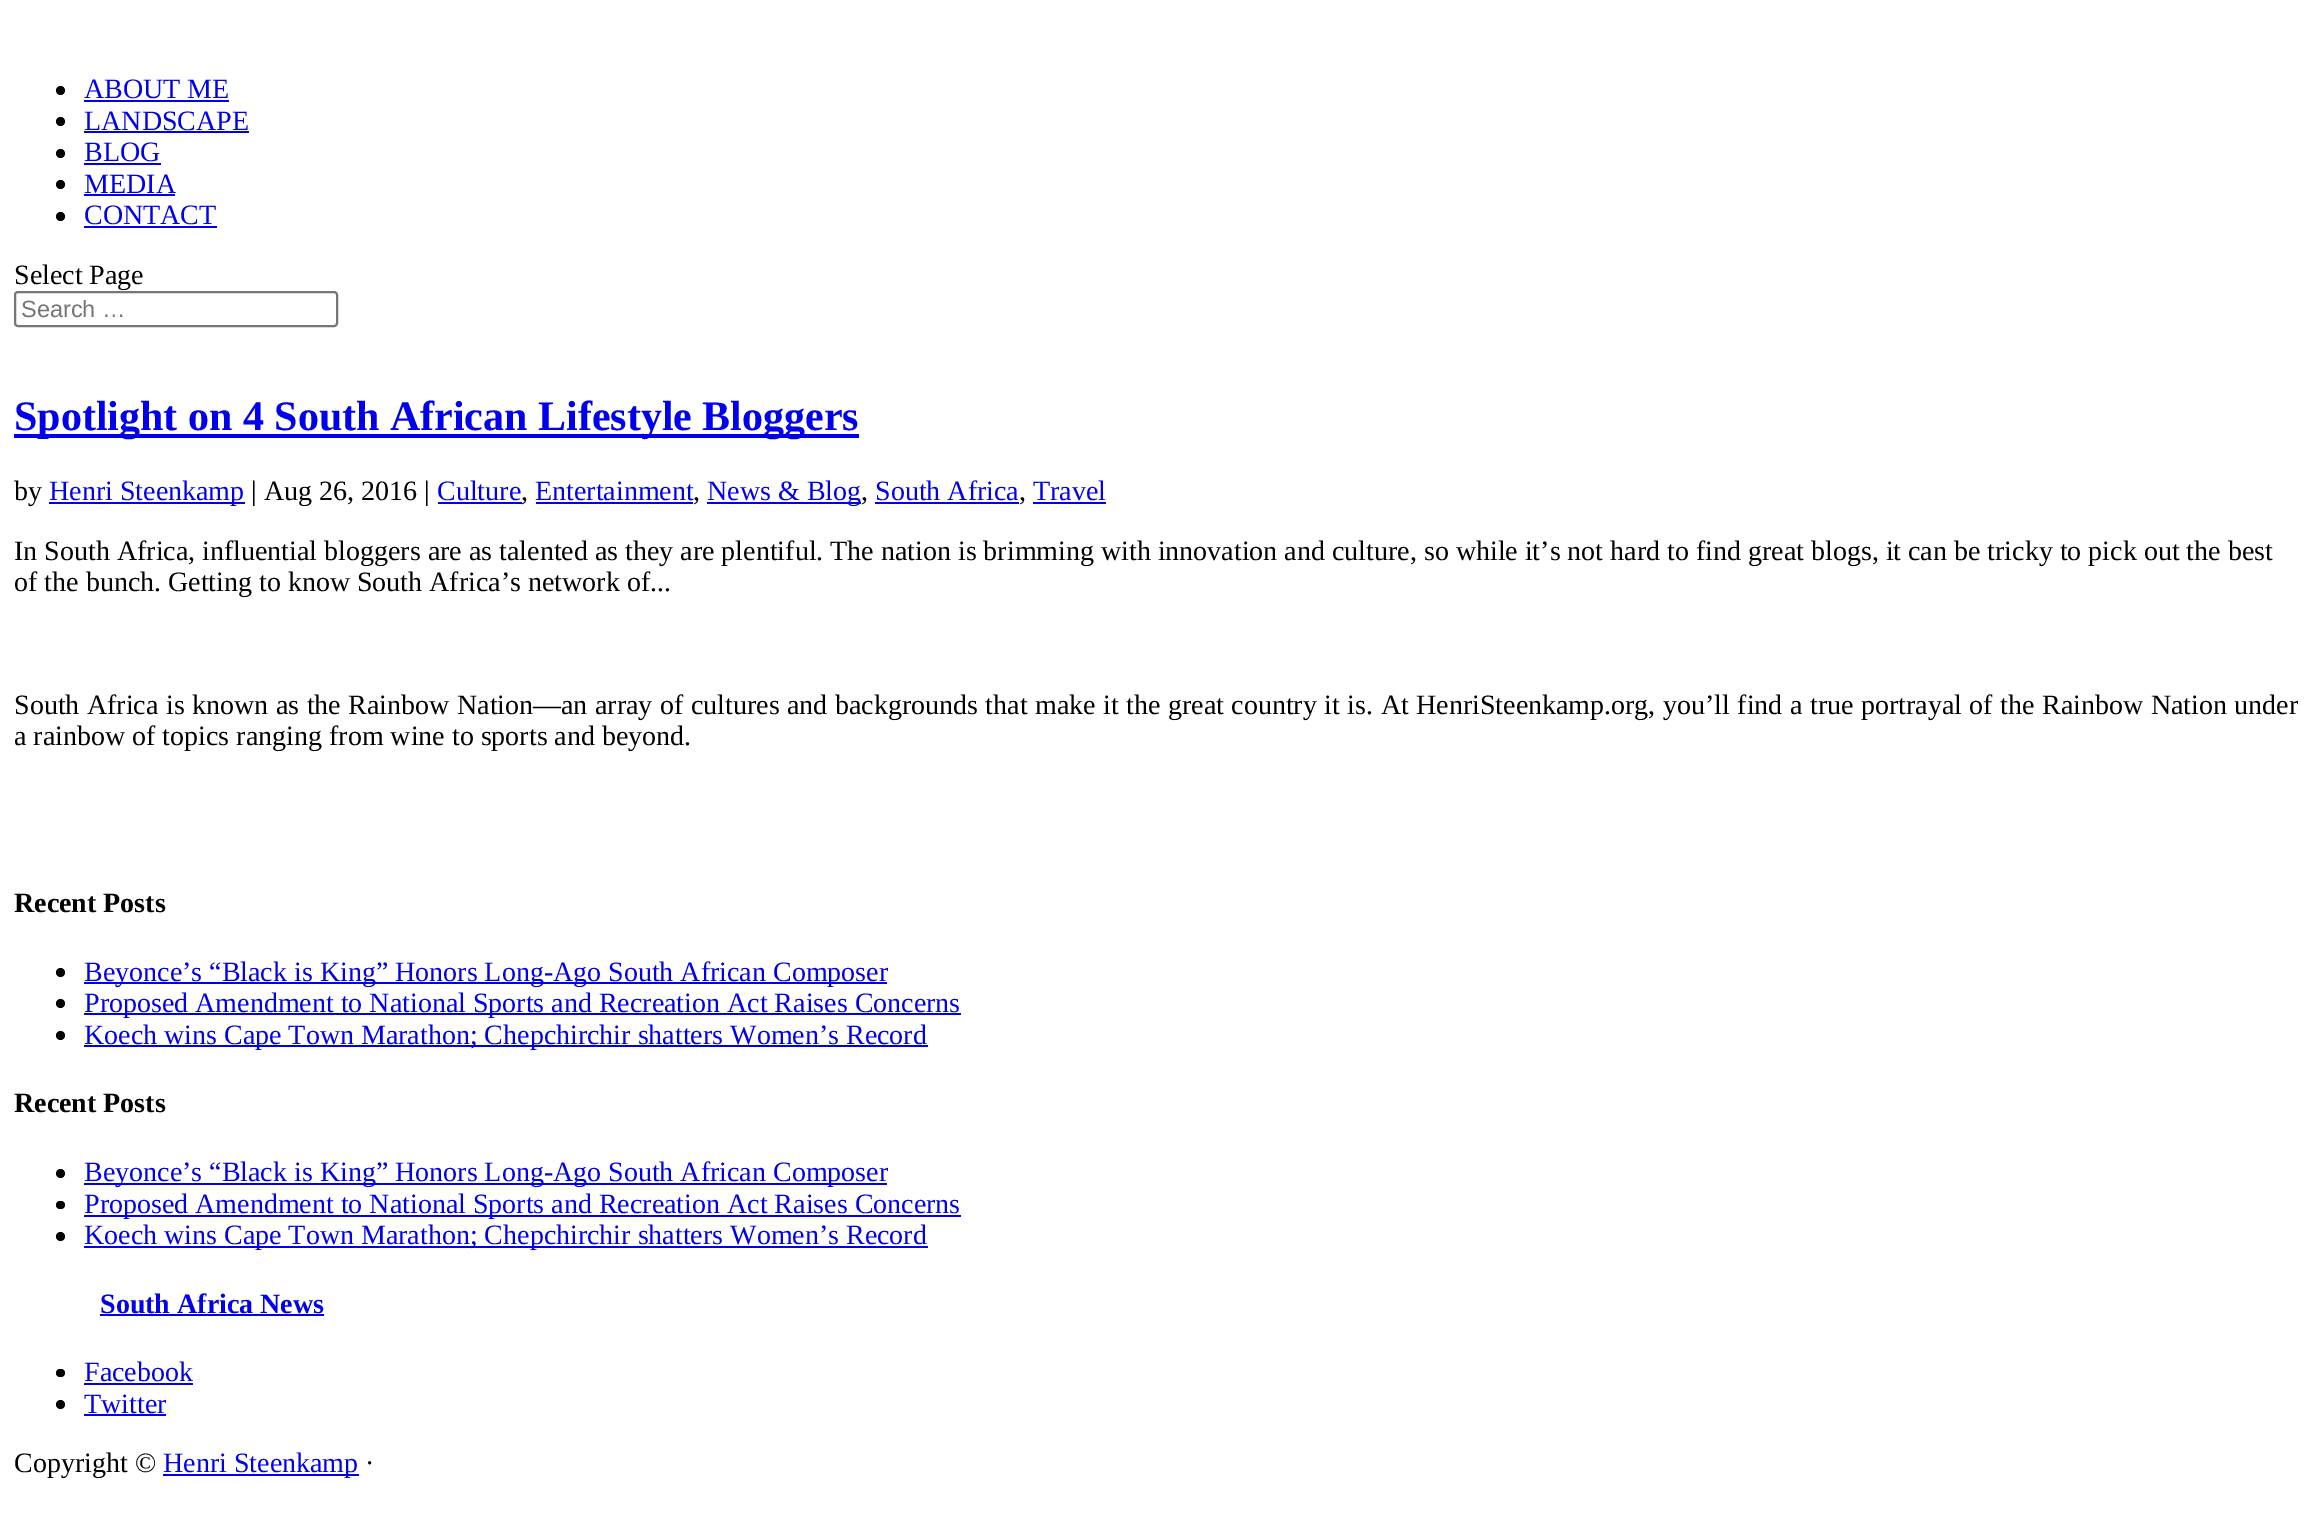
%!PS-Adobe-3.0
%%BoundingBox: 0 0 2311 1532
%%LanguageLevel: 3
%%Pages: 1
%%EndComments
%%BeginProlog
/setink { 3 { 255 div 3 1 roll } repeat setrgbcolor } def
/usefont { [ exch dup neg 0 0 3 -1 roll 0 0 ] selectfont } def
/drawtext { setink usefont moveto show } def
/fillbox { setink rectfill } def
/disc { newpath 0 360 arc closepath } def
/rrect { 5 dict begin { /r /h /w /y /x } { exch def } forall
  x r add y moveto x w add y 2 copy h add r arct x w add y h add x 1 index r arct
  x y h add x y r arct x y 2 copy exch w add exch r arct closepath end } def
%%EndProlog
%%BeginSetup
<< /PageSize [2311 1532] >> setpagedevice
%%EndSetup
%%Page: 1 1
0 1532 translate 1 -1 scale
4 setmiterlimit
0 0 2311 1532 255 255 255 fillbox
0 0 0 setink
60.5 90.5 4.5 disc fill
(ABOUT ME) 84 98 /LiberationSerif-Regular 28 0 0 238 drawtext
84 100 145 2 0 0 238 fillbox
0 0 0 setink
60.5 121.5 4.5 disc fill
(LANDSCAPE) 84 130 /LiberationSerif-Regular 28 0 0 238 drawtext
84 131 165 2 0 0 238 fillbox
0 0 0 setink
60.5 153.5 4.5 disc fill
(BLOG) 84 161 /LiberationSerif-Regular 28 0 0 238 drawtext
84 163 77 2 0 0 238 fillbox
0 0 0 setink
60.5 184.5 4.5 disc fill
(MEDIA) 84 193 /LiberationSerif-Regular 28 0 0 238 drawtext
84 194 91 2 0 0 238 fillbox
0 0 0 setink
60.5 216.5 4.5 disc fill
(CONTACT) 84 224 /LiberationSerif-Regular 28 0 0 238 drawtext
84 226 133 2 0 0 238 fillbox
(Select Page) 14 284 /LiberationSerif-Regular 28 0 0 0 drawtext
118 118 118 setink
2 setlinewidth
15 292 322 34 3 rrect stroke
(Search …) 21 317 /LiberationSans-Regular 23.5 117 117 117 drawtext
14 434 845 4 0 0 238 fillbox
(Spotlight on 4 South African Lifestyle Bloggers) 14 430 /LiberationSerif-Bold 42 0 0 238 drawtext
(by) 14 500 /LiberationSerif-Regular 28 0 0 0 drawtext
49 502 196 2 0 0 238 fillbox
(Henri Steenkamp) 49 500 /LiberationSerif-Regular 28 0 0 238 drawtext
(| Aug 26, 2016 |) 251 500 /LiberationSerif-Regular 28 0 0 0 drawtext
(Culture) 437 500 /LiberationSerif-Regular 28 0 0 238 drawtext
438 502 84 2 0 0 238 fillbox
(,) 521 500 /LiberationSerif-Regular 28 0 0 0 drawtext
(Entertainment) 535 500 /LiberationSerif-Regular 28 0 0 238 drawtext
536 502 157 2 0 0 238 fillbox
(,) 693 500 /LiberationSerif-Regular 28 0 0 0 drawtext
707 502 154 2 0 0 238 fillbox
(News & Blog) 707 500 /LiberationSerif-Regular 28 0 0 238 drawtext
(,) 861 500 /LiberationSerif-Regular 28 0 0 0 drawtext
(South Africa) 875 500 /LiberationSerif-Regular 28 0 0 238 drawtext
875 502 144 2 0 0 238 fillbox
(,) 1019 500 /LiberationSerif-Regular 28 0 0 0 drawtext
(Travel) 1033 500 /LiberationSerif-Regular 28 0 0 238 drawtext
1033 502 73 2 0 0 238 fillbox
(In South Africa, influential bloggers are as talented as they are plentiful. The nation is brimming with innovation and culture, so while it’s not hard to find great blogs, it can be tricky to pick out the best) 14 560 /LiberationSerif-Regular 28 0 0 0 drawtext
(of the bunch. Getting to know South Africa’s network of...) 14 591 /LiberationSerif-Regular 28 0 0 0 drawtext
14 714 moveto 0.5 0 32 (South Africa is known as the Rainbow Nation—an array of cultures and backgrounds that make it the great country it is. At HenriSteenkamp.org, you’ll find a true portrayal of the Rainbow Nation under) widthshow
(a rainbow of topics ranging from wine to sports and beyond.) 14 745 /LiberationSerif-Regular 28 0 0 0 drawtext
(Recent Posts) 14 912 /LiberationSerif-Bold 28 0 0 0 drawtext
60.5 972.5 4.5 disc fill
84 982 803 2 0 0 238 fillbox
(Beyonce’s “Black is King” Honors Long-Ago South African Composer) 84 981 /LiberationSerif-Regular 28 0 0 238 drawtext
0 0 0 setink
60.5 1003.5 4.5 disc fill
84 1013 877 2 0 0 238 fillbox
(Proposed Amendment to National Sports and Recreation Act Raises Concerns) 84 1012 /LiberationSerif-Regular 28 0 0 238 drawtext
0 0 0 setink
60.5 1035.5 4.5 disc fill
84 1045 844 2 0 0 238 fillbox
(Koech wins Cape Town Marathon; Chepchirchir shatters Women’s Record) 84 1044 /LiberationSerif-Regular 28 0 0 238 drawtext
(Recent Posts) 14 1112 /LiberationSerif-Bold 28 0 0 0 drawtext
60.5 1173.5 4.5 disc fill
84 1183 803 2 0 0 238 fillbox
(Beyonce’s “Black is King” Honors Long-Ago South African Composer) 84 1181 /LiberationSerif-Regular 28 0 0 238 drawtext
0 0 0 setink
56 1201 9 8 4 rrect fill
84 1215 877 2 0 0 238 fillbox
(Proposed Amendment to National Sports and Recreation Act Raises Concerns) 84 1213 /LiberationSerif-Regular 28 0 0 238 drawtext
0 0 0 setink
60.5 1236.5 4.5 disc fill
84 1246 844 2 0 0 238 fillbox
(Koech wins Cape Town Marathon; Chepchirchir shatters Women’s Record) 84 1244 /LiberationSerif-Regular 28 0 0 238 drawtext
(South Africa News) 100 1313 /LiberationSerif-Bold 28 0 0 238 drawtext
100 1314 224 2 0 0 238 fillbox
0 0 0 setink
56 1369 9 8 4 rrect fill
(Facebook) 84 1381 /LiberationSerif-Regular 28 0 0 238 drawtext
84 1383 109 2 0 0 238 fillbox
0 0 0 setink
60.5 1404.5 4.5 disc fill
(Twitter) 84 1413 /LiberationSerif-Regular 28 0 0 238 drawtext
84 1414 82 2 0 0 238 fillbox
(Copyright ©) 14 1472 /LiberationSerif-Regular 28 0 0 0 drawtext
163 1474 196 2 0 0 238 fillbox
(Henri Steenkamp) 163 1472 /LiberationSerif-Regular 28 0 0 238 drawtext
(·) 365 1472 /LiberationSerif-Regular 28 0 0 0 drawtext
showpage
%%EOF
